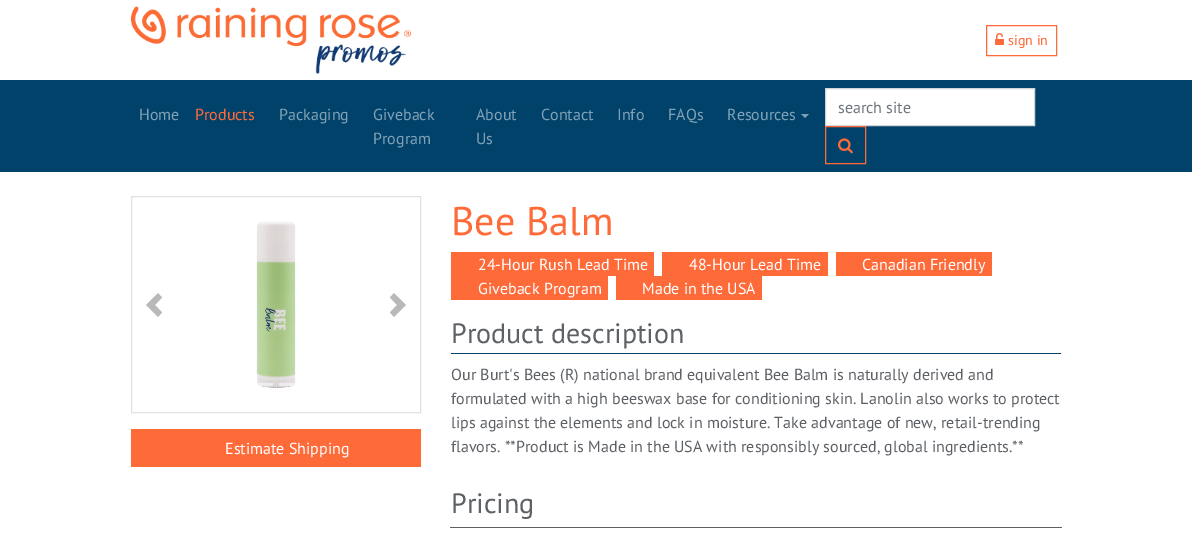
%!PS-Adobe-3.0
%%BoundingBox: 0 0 1192 551
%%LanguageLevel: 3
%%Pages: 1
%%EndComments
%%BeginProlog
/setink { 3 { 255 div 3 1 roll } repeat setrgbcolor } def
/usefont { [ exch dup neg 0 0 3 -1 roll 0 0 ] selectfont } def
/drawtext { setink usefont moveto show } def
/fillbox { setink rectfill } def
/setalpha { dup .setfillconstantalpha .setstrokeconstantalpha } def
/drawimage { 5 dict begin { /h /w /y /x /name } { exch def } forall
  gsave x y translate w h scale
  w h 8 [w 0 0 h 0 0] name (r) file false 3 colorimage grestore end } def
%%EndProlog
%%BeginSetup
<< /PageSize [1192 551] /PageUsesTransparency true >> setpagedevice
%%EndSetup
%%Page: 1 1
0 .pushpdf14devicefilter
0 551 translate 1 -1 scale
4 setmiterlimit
0 0 1192 551 255 255 255 fillbox
(assets/img1.rgb) 131 6 280 68 drawimage
255 106 57 setink
986.5 25.5 70 30 rectstroke
(assets/img2.rgb) 995 33 9 12 drawimage
(sign in) 1008 45 /PTSans-Regular 14 255 106 57 drawtext
0 80 1192 92 1 66 106 fillbox
(Home) 139 120 /PTSans-Regular 16 128 161 181 drawtext
(Products) 195 120 /PTSans-Regular 16 255 106 57 drawtext
(Packaging) 279 120 /PTSans-Regular 16 128 161 181 drawtext
(Giveback) 373 120 /PTSans-Regular 16 128 161 181 drawtext
(Program) 373 144 /PTSans-Regular 16 128 161 181 drawtext
(About) 476 120 /PTSans-Regular 16 128 161 181 drawtext
(Us) 476 144 /PTSans-Regular 16 128 161 181 drawtext
(Contact) 541 120 /PTSans-Regular 16 128 161 181 drawtext
(Info) 617 120 /PTSans-Regular 16 128 161 181 drawtext
(FAQs) 668 120 /PTSans-Regular 16 128 161 181 drawtext
(Resources) 727 120 /PTSans-Regular 16 128 161 181 drawtext
801 114 moveto 809 114 lineto 805 118 lineto closepath fill
255 255 255 setink
825.5 88.5 moveto 1034.5 88.5 lineto 1034.5 125.5 lineto 825.5 125.5 lineto closepath gsave fill grestore
206 212 218 setink
stroke
(search site) 838 113 /PTSans-Regular 16 108 117 125 drawtext
255 106 57 setink
825.5 126.5 40 37 rectstroke
(assets/img3.rgb) 838 138 15 16 drawimage
222 226 230 setink
131.5 196.5 289 216 rectstroke
185 185 185 setink
158 293 moveto 146 305 lineto 158 317 lineto 162 312.5 lineto 155 305 lineto 162 297.5 lineto closepath fill
(assets/img4.rgb) 256 221 40 167 drawimage
394 293 moveto 390 297.5 lineto 397 305 lineto 390 312.5 lineto 394 317 lineto 406 305 lineto closepath fill
0.5 setalpha
257 383 16 3 255 255 255 fillbox
279 383 16 3 255 255 255 fillbox
1 setalpha
131 429 290 38 255 106 57 fillbox
(Estimate Shipping) 225 454 /PTSans-Regular 16 255 255 255 drawtext
(Bee Balm) 451 235 /PTSans-Regular 40 255 106 57 drawtext
451 252 203 24 255 106 57 fillbox
(24-Hour Rush Lead Time) 478 270 /PTSans-Regular 16 255 255 255 drawtext
662 252 166 24 255 106 57 fillbox
(48-Hour Lead Time) 689 270 /PTSans-Regular 16 255 255 255 drawtext
836 252 156 24 255 106 57 fillbox
(Canadian Friendly) 862 270 /PTSans-Regular 16 255 255 255 drawtext
451 276 157 24 255 106 57 fillbox
(Giveback Program) 478 294 /PTSans-Regular 16 255 255 255 drawtext
616 276 146 24 255 106 57 fillbox
(Made in the USA) 642 294 /PTSans-Regular 16 255 255 255 drawtext
451 353 610 1 1 66 106 fillbox
(Product description) 451 343 /PTSans-Regular 28 93 97 102 drawtext
(Our Burt's Bees \(R\) national brand equivalent Bee Balm is naturally derived and) 451 380 /PTSans-Regular 16 93 97 102 drawtext
(formulated with a high beeswax base for conditioning skin. Lanolin also works to protect) 451 404 /PTSans-Regular 16 93 97 102 drawtext
(lips against the elements and lock in moisture. Take advantage of new, retail-trending) 451 428 /PTSans-Regular 16 93 97 102 drawtext
(flavors. **Product is Made in the USA with responsibly sourced, global ingredients.**) 451 452 /PTSans-Regular 16 93 97 102 drawtext
(Pricing) 451 513 /PTSans-Regular 28 93 97 102 drawtext
450 527 612 1 93 97 102 fillbox
.poppdf14devicefilter showpage
%%EOF
